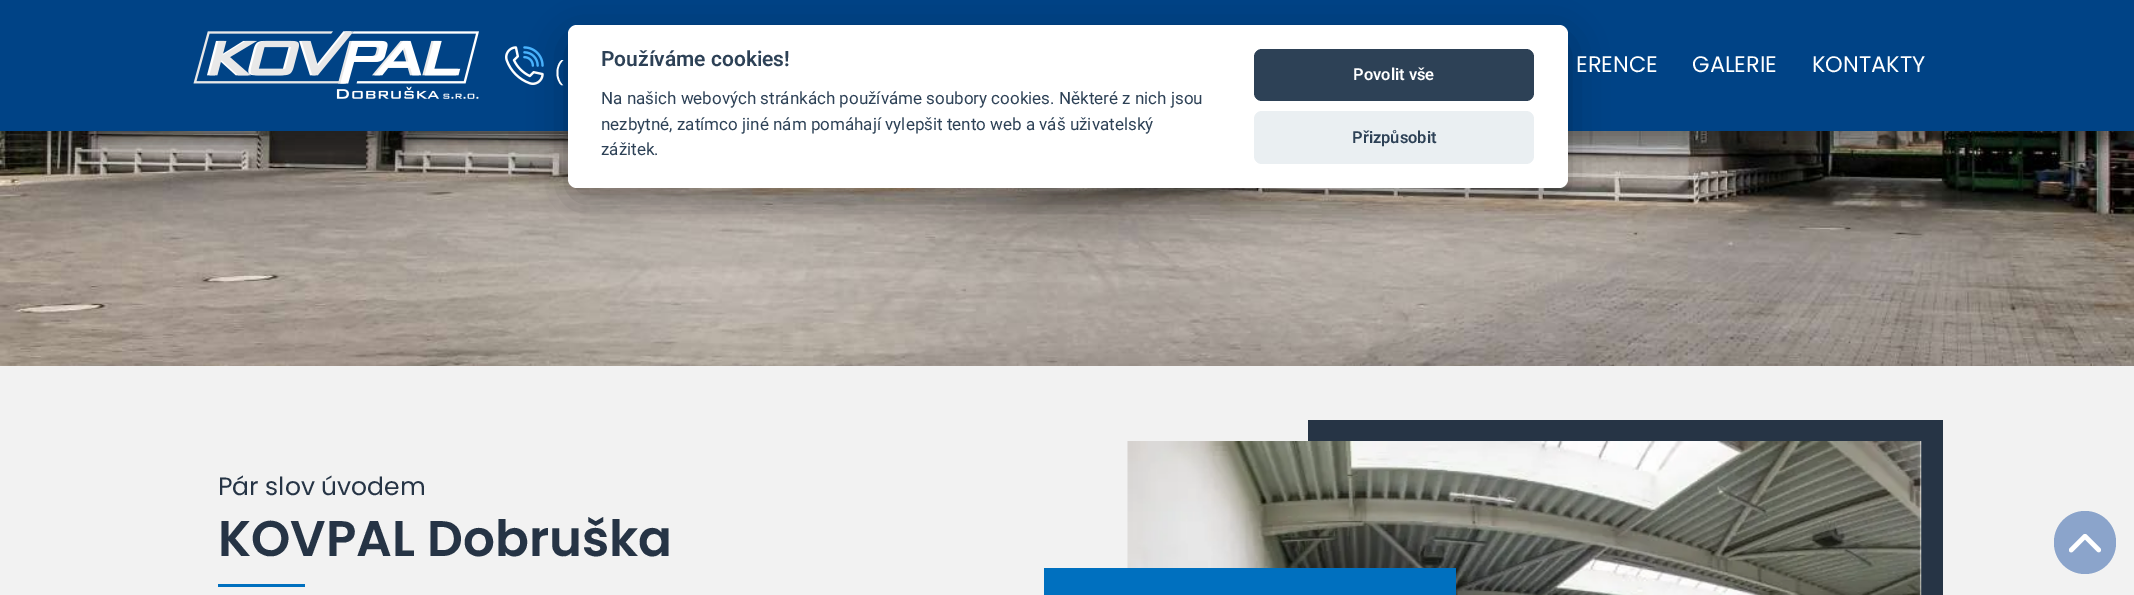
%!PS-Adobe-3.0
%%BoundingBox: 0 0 2134 595
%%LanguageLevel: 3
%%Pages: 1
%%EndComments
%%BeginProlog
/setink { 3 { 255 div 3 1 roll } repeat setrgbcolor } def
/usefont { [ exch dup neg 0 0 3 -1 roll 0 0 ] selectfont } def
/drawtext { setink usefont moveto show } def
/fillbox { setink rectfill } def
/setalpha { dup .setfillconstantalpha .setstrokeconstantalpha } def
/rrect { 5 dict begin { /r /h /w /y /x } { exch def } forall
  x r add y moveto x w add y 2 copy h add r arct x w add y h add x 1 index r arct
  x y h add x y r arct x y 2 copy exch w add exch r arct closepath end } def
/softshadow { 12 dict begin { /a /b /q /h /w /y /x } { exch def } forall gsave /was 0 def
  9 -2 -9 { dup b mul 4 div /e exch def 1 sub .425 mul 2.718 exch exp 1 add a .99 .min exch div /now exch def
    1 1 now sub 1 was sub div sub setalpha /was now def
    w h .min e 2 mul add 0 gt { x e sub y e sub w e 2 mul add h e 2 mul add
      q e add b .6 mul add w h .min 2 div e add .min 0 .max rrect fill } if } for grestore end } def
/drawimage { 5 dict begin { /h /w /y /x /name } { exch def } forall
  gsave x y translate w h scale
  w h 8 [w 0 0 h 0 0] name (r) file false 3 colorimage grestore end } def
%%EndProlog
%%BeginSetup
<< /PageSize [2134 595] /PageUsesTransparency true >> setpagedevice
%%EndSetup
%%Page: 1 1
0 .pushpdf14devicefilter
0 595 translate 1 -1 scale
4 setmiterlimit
0 0 2134 595 242 242 242 fillbox
(assets/img3.rgb) 0 131 2134 235 drawimage
0 0 0 setink
0 13 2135 131 0 6 0.22 softshadow
0 18 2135 131 0 17.5 0.25 softshadow
0 0 2134 131 0 67 134 fillbox
(assets/img2.rgb) 505 46 39 39 drawimage
2 2 3 setink
568 38 1000 162 9 19 0.28 softshadow
255 255 255 setink
568 25 1000 163 9 rrect fill
(Používáme cookies!) 601 66 /Roboto-SemiBold 21 45 65 86 drawtext
(Na našich webových stránkách používáme soubory cookies. Některé z nich jsou) 601 104 /Roboto-Regular 17 45 65 86 drawtext
(nezbytné, zatímco jiné nám pomáhají vylepšit tento web a váš uživatelský) 601 130 /Roboto-Regular 17 45 65 86 drawtext
(zážitek.) 601 155 /Roboto-Regular 17 45 65 86 drawtext
1254 49 280 52 8 rrect fill
(Povolit vše) 1353 80 /Roboto-SemiBold 16.5 255 255 255 drawtext
234 239 242 setink
1254 111 280 53 8 rrect fill
(Přizpůsobit) 1352 143 /Roboto-SemiBold 16.5 45 65 86 drawtext
(assets/img1.rgb) 193 31 286 68 drawimage
(\() 554 81 /Poppins-Regular 22.5 255 255 255 drawtext
(ERENCE) 1576 72 /Poppins-Regular 22.5 255 255 255 drawtext
(GALERIE) 1692 72 /Poppins-Regular 22.5 255 255 255 drawtext
(KONTAKTY) 1812 72 /Poppins-Regular 22.5 255 255 255 drawtext
(Pár slov úvodem) 218 495 /Poppins-Regular 25 38 52 69 drawtext
(KOVPAL Dobruška) 218 556 /Poppins-SemiBold 50 38 52 69 drawtext
218 584 87 3 0 112 191 fillbox
1308 420 635 175 38 52 69 fillbox
(assets/img4.rgb) 1127 441 795 154 drawimage
1044 568 412 27 0 112 191 fillbox
139 164 203 setink
2054 511 62 63 31 rrect fill
(assets/img5.rgb) 2069 534 32 19 drawimage
.poppdf14devicefilter showpage
%%EOF
